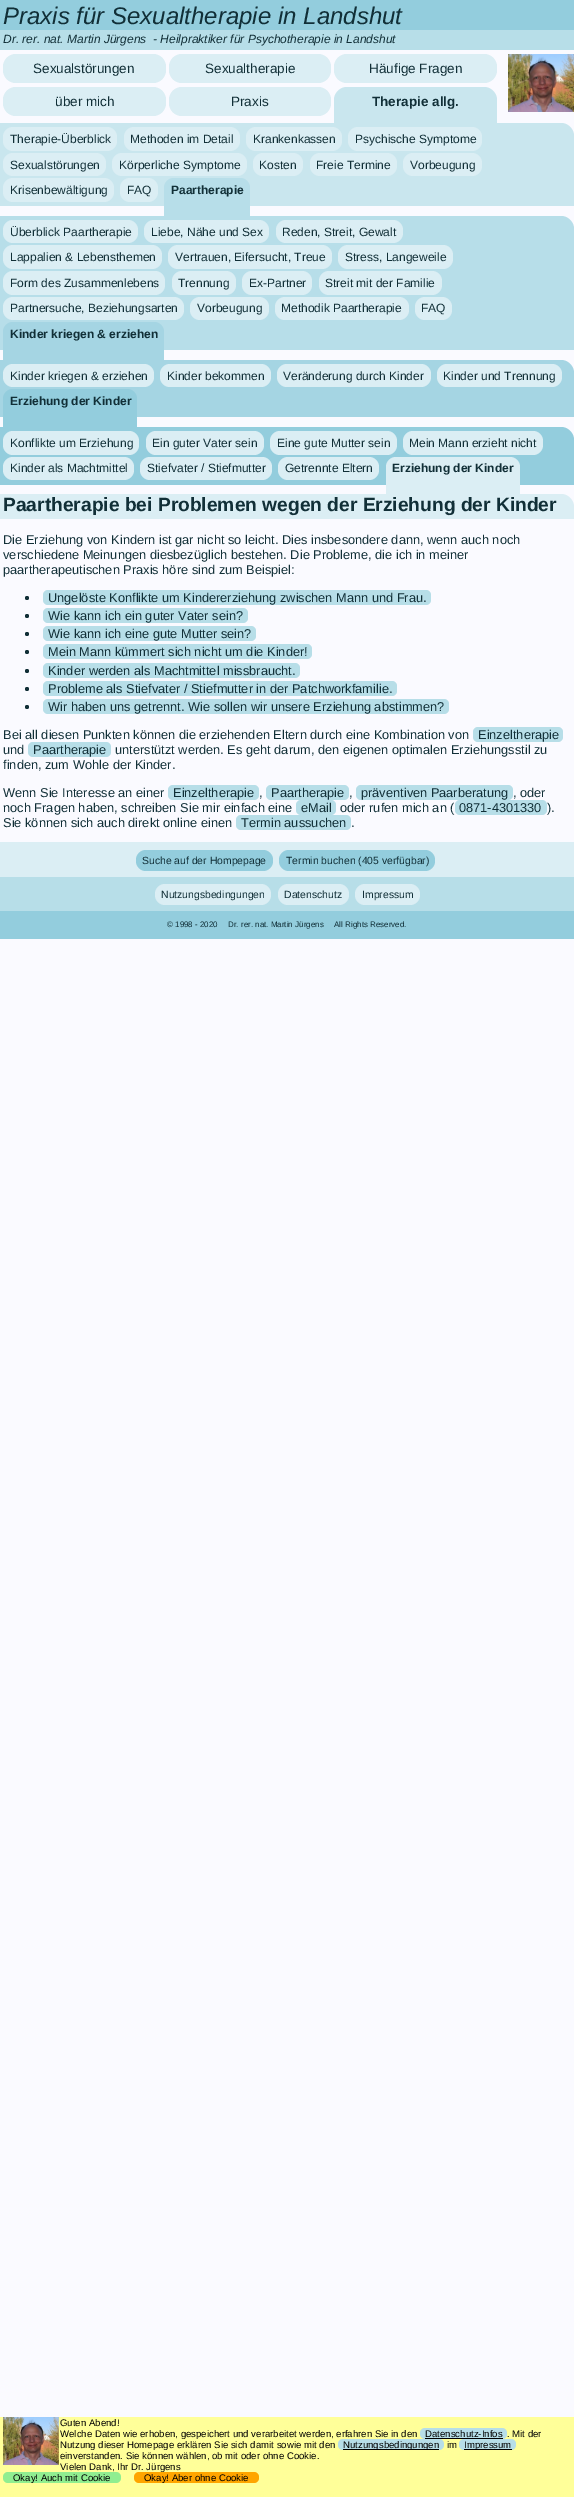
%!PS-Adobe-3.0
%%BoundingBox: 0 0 574 2497
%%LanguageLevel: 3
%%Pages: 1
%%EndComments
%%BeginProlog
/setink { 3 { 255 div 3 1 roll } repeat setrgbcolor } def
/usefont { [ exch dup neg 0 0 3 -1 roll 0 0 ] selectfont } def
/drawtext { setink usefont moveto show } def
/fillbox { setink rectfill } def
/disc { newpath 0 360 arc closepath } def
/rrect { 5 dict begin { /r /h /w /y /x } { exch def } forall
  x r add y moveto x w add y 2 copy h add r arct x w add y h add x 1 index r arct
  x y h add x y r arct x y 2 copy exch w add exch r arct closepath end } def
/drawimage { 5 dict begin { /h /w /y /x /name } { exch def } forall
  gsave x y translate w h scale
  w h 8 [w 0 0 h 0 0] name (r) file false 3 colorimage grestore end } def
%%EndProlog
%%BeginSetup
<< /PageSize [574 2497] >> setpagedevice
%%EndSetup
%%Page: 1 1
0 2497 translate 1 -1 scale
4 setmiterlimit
0 0 574 2497 250 250 255 fillbox
0 0 574 30 147 205 221 fillbox
(Praxis für Sexualtherapie in Landshut) 3 24 /LiberationSans-Italic 24 17 47 55 drawtext
0 30 574 20 183 222 232 fillbox
(Dr. rer. nat. Martin Jürgens) 3 43 /LiberationSans-Italic 12 17 47 55 drawtext
(- Heilpraktiker für Psychotherapie in Landshut) 153 43 /LiberationSans-Italic 12 17 47 55 drawtext
(assets/img1.rgb) 508 54 66 58 drawimage
219 238 244 setink
3 54 163 29 13 rrect fill
(Sexualstörungen) 33 73 /LiberationSans-Regular 13.5 17 47 55 drawtext
219 238 244 setink
169 54 162 29 13 rrect fill
(Sexualtherapie) 205 73 /LiberationSans-Regular 13.5 17 47 55 drawtext
219 238 244 setink
334 54 163 29 13 rrect fill
(Häufige Fragen) 369 73 /LiberationSans-Regular 13.5 17 47 55 drawtext
219 238 244 setink
3 87 163 29 13 rrect fill
(über mich) 55 106 /LiberationSans-Regular 13.5 17 47 55 drawtext
219 238 244 setink
169 87 162 29 13 rrect fill
(Praxis) 231 106 /LiberationSans-Regular 13.5 17 47 55 drawtext
201 230 238 setink
0 123 moveto 561 123 lineto 568 123 574 129 574 136 curveto 574 206 lineto 0 206 lineto closepath fill
347 87 moveto 484 87 lineto 491 87 497 93 497 100 curveto 497 124 lineto 334 124 lineto 334 100 lineto 334 93 340 87 347 87 curveto closepath fill
(Therapie allg.) 372 106 /LiberationSans-Bold 13.5 17 47 55 drawtext
219 238 244 setink
3 127 114 24 10 rrect fill
(Therapie-Überblick) 10 143 /LiberationSans-Regular 12 17 47 55 drawtext
219 238 244 setink
124 127 116 24 10 rrect fill
(Methoden im Detail) 130 143 /LiberationSans-Regular 12 17 47 55 drawtext
219 238 244 setink
246 127 96 24 10 rrect fill
(Krankenkassen) 253 143 /LiberationSans-Regular 12 17 47 55 drawtext
219 238 244 setink
348 127 134 24 10 rrect fill
(Psychische Symptome) 355 143 /LiberationSans-Regular 12 17 47 55 drawtext
219 238 244 setink
3 153 103 23 10 rrect fill
(Sexualstörungen) 10 169 /LiberationSans-Regular 12 17 47 55 drawtext
219 238 244 setink
112 153 135 23 10 rrect fill
(Körperliche Symptome) 119 169 /LiberationSans-Regular 12 17 47 55 drawtext
219 238 244 setink
253 153 50 23 10 rrect fill
(Kosten) 259 169 /LiberationSans-Regular 12 17 47 55 drawtext
219 238 244 setink
310 153 87 23 10 rrect fill
(Freie Termine) 316 169 /LiberationSans-Regular 12 17 47 55 drawtext
219 238 244 setink
403 153 79 23 10 rrect fill
(Vorbeugung) 410 169 /LiberationSans-Regular 12 17 47 55 drawtext
219 238 244 setink
3 178 111 24 10 rrect fill
(Krisenbewältigung) 10 194 /LiberationSans-Regular 12 17 47 55 drawtext
219 238 244 setink
120 178 38 24 10 rrect fill
(FAQ) 127 194 /LiberationSans-Regular 12 17 47 55 drawtext
183 222 233 setink
0 216 moveto 561 216 lineto 568 216 574 222 574 229 curveto 574 350 lineto 0 350 lineto closepath fill
174 178 moveto 240 178 lineto 245.5 178 250 182.5 250 188 curveto 250 218 lineto 164 218 lineto 164 188 lineto 164 182.5 168.5 178 174 178 curveto closepath fill
(Paartherapie) 171 194 /LiberationSans-Bold 12 17 47 55 drawtext
219 238 244 setink
3 220 135 23 10 rrect fill
(Überblick Paartherapie) 10 236 /LiberationSans-Regular 12 17 47 55 drawtext
219 238 244 setink
144 220 125 23 10 rrect fill
(Liebe, Nähe und Sex) 151 236 /LiberationSans-Regular 12 17 47 55 drawtext
219 238 244 setink
276 220 127 23 10 rrect fill
(Reden, Streit, Gewalt) 282 236 /LiberationSans-Regular 12 17 47 55 drawtext
219 238 244 setink
3 245 159 24 10 rrect fill
(Lappalien & Lebensthemen) 10 261 /LiberationSans-Regular 12 17 47 55 drawtext
219 238 244 setink
168 245 164 24 10 rrect fill
(Vertrauen, Eifersucht, Treue) 175 261 /LiberationSans-Regular 12 17 47 55 drawtext
219 238 244 setink
338 245 115 24 10 rrect fill
(Stress, Langeweile) 345 261 /LiberationSans-Regular 12 17 47 55 drawtext
219 238 244 setink
3 271 162 24 10 rrect fill
(Form des Zusammenlebens) 10 287 /LiberationSans-Regular 12 17 47 55 drawtext
219 238 244 setink
172 271 64 24 10 rrect fill
(Trennung) 178 287 /LiberationSans-Regular 12 17 47 55 drawtext
219 238 244 setink
242 271 70 24 10 rrect fill
(Ex-Partner) 249 287 /LiberationSans-Regular 12 17 47 55 drawtext
219 238 244 setink
319 271 123 24 10 rrect fill
(Streit mit der Familie) 325 287 /LiberationSans-Regular 12 17 47 55 drawtext
219 238 244 setink
3 297 181 23 10 rrect fill
(Partnersuche, Beziehungsarten) 10 312 /LiberationSans-Regular 12 17 47 55 drawtext
219 238 244 setink
190 297 79 23 10 rrect fill
(Vorbeugung) 197 312 /LiberationSans-Regular 12 17 47 55 drawtext
219 238 244 setink
275 297 134 23 10 rrect fill
(Methodik Paartherapie) 281 312 /LiberationSans-Regular 12 17 47 55 drawtext
219 238 244 setink
415 297 37 23 10 rrect fill
(FAQ) 421 312 /LiberationSans-Regular 12 17 47 55 drawtext
165 213 227 setink
0 360 moveto 561 360 lineto 568 360 574 366 574 373 curveto 574 417 lineto 0 417 lineto closepath fill
13 322 moveto 154 322 lineto 159.5 322 164 326.5 164 332 curveto 164 362 lineto 3 362 lineto 3 332 lineto 3 326.5 7.5 322 13 322 curveto closepath fill
(Kinder kriegen & erziehen) 10 338 /LiberationSans-Bold 12 17 47 55 drawtext
219 238 244 setink
3 364 151 23 10 rrect fill
(Kinder kriegen & erziehen) 10 380 /LiberationSans-Regular 12 17 47 55 drawtext
219 238 244 setink
160 364 111 23 10 rrect fill
(Kinder bekommen) 167 380 /LiberationSans-Regular 12 17 47 55 drawtext
219 238 244 setink
277 364 154 23 10 rrect fill
(Veränderung durch Kinder) 283 380 /LiberationSans-Regular 12 17 47 55 drawtext
219 238 244 setink
437 364 125 23 10 rrect fill
(Kinder und Trennung) 443 380 /LiberationSans-Regular 12 17 47 55 drawtext
147 205 221 setink
0 427 moveto 561 427 lineto 568 427 574 433 574 440 curveto 574 485 lineto 0 485 lineto closepath fill
13 389 moveto 127 389 lineto 132.5 389 137 393.5 137 399 curveto 137 429 lineto 3 429 lineto 3 399 lineto 3 393.5 7.5 389 13 389 curveto closepath fill
(Erziehung der Kinder) 10 405 /LiberationSans-Bold 12 17 47 55 drawtext
219 238 244 setink
3 431 136 24 10 rrect fill
(Konflikte um Erziehung) 10 447 /LiberationSans-Regular 12 17 47 55 drawtext
219 238 244 setink
146 431 118 24 10 rrect fill
(Ein guter Vater sein) 152 447 /LiberationSans-Regular 12 17 47 55 drawtext
219 238 244 setink
270 431 127 24 10 rrect fill
(Eine gute Mutter sein) 277 447 /LiberationSans-Regular 12 17 47 55 drawtext
219 238 244 setink
403 431 140 24 10 rrect fill
(Mein Mann erzieht nicht) 409 447 /LiberationSans-Regular 12 17 47 55 drawtext
219 238 244 setink
3 457 131 23 10 rrect fill
(Kinder als Machtmittel) 10 472 /LiberationSans-Regular 12 17 47 55 drawtext
219 238 244 setink
140 457 132 23 10 rrect fill
(Stiefvater / Stiefmutter) 147 472 /LiberationSans-Regular 12 17 47 55 drawtext
219 238 244 setink
278 457 101 23 10 rrect fill
(Getrennte Eltern) 285 472 /LiberationSans-Regular 12 17 47 55 drawtext
219 238 244 setink
0 494 moveto 561 494 lineto 568 494 574 500 574 507 curveto 574 519 lineto 0 519 lineto closepath fill
396 457 moveto 510 457 lineto 515.5 457 520 461.5 520 467 curveto 520 496 lineto 386 496 lineto 386 467 lineto 386 461.5 390.5 457 396 457 curveto closepath fill
(Erziehung der Kinder) 392 472 /LiberationSans-Bold 12 17 47 55 drawtext
(Paartherapie bei Problemen wegen der Erziehung der Kinder) 3 511 /LiberationSans-Bold 19.2 17 47 55 drawtext
(Die Erziehung von Kindern ist gar nicht so leicht. Dies insbesondere dann, wenn auch noch) 3 544 /LiberationSans-Regular 12.8 17 47 55 drawtext
(verschiedene Meinungen diesbezüglich bestehen. Die Probleme, die ich in meiner) 3 559 /LiberationSans-Regular 12.8 17 47 55 drawtext
(paartherapeutischen Praxis höre sind zum Beispiel:) 3 574 /LiberationSans-Regular 12.8 17 47 55 drawtext
27 598 2 disc fill
183 222 232 setink
43 590 388 15 5 rrect fill
(Ungelöste Konflikte um Kindererziehung zwischen Mann und Frau.) 48 602 /LiberationSans-Regular 12.8 17 47 55 drawtext
27 616 2 disc fill
183 222 232 setink
43 608 205 15 5 rrect fill
(Wie kann ich ein guter Vater sein?) 48 620 /LiberationSans-Regular 12.8 17 47 55 drawtext
27 634 2 disc fill
183 222 232 setink
43 626 213 15 5 rrect fill
(Wie kann ich eine gute Mutter sein?) 48 638 /LiberationSans-Regular 12.8 17 47 55 drawtext
27 652 2 disc fill
183 222 232 setink
43 644 269 15 5 rrect fill
(Mein Mann kümmert sich nicht um die Kinder!) 48 656 /LiberationSans-Regular 12.8 17 47 55 drawtext
27 671 2 disc fill
183 222 232 setink
43 663 257 15 5 rrect fill
(Kinder werden als Machtmittel missbraucht.) 48 675 /LiberationSans-Regular 12.8 17 47 55 drawtext
27 689 2 disc fill
183 222 232 setink
43 681 354 15 5 rrect fill
(Probleme als Stiefvater / Stiefmutter in der Patchworkfamilie.) 48 693 /LiberationSans-Regular 12.8 17 47 55 drawtext
27 707 2 disc fill
183 222 232 setink
43 699 406 15 5 rrect fill
(Wir haben uns getrennt. Wie sollen wir unsere Erziehung abstimmen?) 48 711 /LiberationSans-Regular 12.8 17 47 55 drawtext
(Bei all diesen Punkten können die erziehenden Eltern durch eine Kombination von) 3 739 /LiberationSans-Regular 12.8 17 47 55 drawtext
183 222 232 setink
473 727 90 15 5 rrect fill
(Einzeltherapie) 478 739 /LiberationSans-Regular 12.8 17 47 55 drawtext
(und) 3 754 /LiberationSans-Regular 12.8 17 47 55 drawtext
183 222 232 setink
28 742 83 15 5 rrect fill
(Paartherapie) 33 754 /LiberationSans-Regular 12.8 17 47 55 drawtext
(unterstützt werden. Es geht darum, den eigenen optimalen Erziehungsstil zu) 115 754 /LiberationSans-Regular 12.8 17 47 55 drawtext
(finden, zum Wohle der Kinder.) 3 769 /LiberationSans-Regular 12.8 17 47 55 drawtext
(Wenn Sie Interesse an einer) 3 797 /LiberationSans-Regular 12.8 17 47 55 drawtext
183 222 232 setink
168 785 91 15 5 rrect fill
(Einzeltherapie) 173 797 /LiberationSans-Regular 12.8 17 47 55 drawtext
(,) 259 797 /LiberationSans-Regular 12.8 17 47 55 drawtext
183 222 232 setink
266 785 83 15 5 rrect fill
(Paartherapie) 271 797 /LiberationSans-Regular 12.8 17 47 55 drawtext
(,) 349 797 /LiberationSans-Regular 12.8 17 47 55 drawtext
183 222 232 setink
356 785 157 15 5 rrect fill
(präventiven Paarberatung) 361 797 /LiberationSans-Regular 12.8 17 47 55 drawtext
(, oder) 513 797 /LiberationSans-Regular 12.8 17 47 55 drawtext
(noch Fragen haben, schreiben Sie mir einfach eine) 3 812 /LiberationSans-Regular 12.8 17 47 55 drawtext
183 222 232 setink
296 800 40 15 5 rrect fill
(eMail) 301 812 /LiberationSans-Regular 12.8 17 47 55 drawtext
(oder rufen mich an \() 340 812 /LiberationSans-Regular 12.8 17 47 55 drawtext
183 222 232 setink
455 800 92 15 5 rrect fill
(0871-4301330) 459 812 /LiberationSans-Regular 12.8 17 47 55 drawtext
(\).) 547 812 /LiberationSans-Regular 12.8 17 47 55 drawtext
(Sie können sich auch direkt online einen) 3 827 /LiberationSans-Regular 12.8 17 47 55 drawtext
183 222 232 setink
236 815 115 15 5 rrect fill
(Termin aussuchen) 241 827 /LiberationSans-Regular 12.8 17 47 55 drawtext
(.) 351 827 /LiberationSans-Regular 12.8 17 47 55 drawtext
0 842 574 35 219 238 244 fillbox
147 205 221 setink
136 850 137 21 10 rrect fill
(Suche auf der Hompepage) 142 864 /LiberationSans-Regular 10.4 17 47 55 drawtext
147 205 221 setink
279 850 156 21 10 rrect fill
(Termin buchen \(405 verfügbar\)) 286 864 /LiberationSans-Regular 10.4 17 47 55 drawtext
0 877 574 34 183 222 232 fillbox
219 238 244 setink
155 884 116 21 10 rrect fill
(Nutzungsbedingungen) 161 898 /LiberationSans-Regular 10.4 17 47 55 drawtext
219 238 244 setink
278 884 71 21 10 rrect fill
(Datenschutz) 284 898 /LiberationSans-Regular 10.4 17 47 55 drawtext
219 238 244 setink
355 884 65 21 10 rrect fill
(Impressum) 362 898 /LiberationSans-Regular 10.4 17 47 55 drawtext
0 911 574 28 147 205 221 fillbox
(© 1998 - 2020) 167 927 /LiberationSans-Regular 8 17 47 55 drawtext
(Dr. rer. nat. Martin Jürgens) 228 927 /LiberationSans-Regular 8 17 47 55 drawtext
(All Rights Reserved.) 334 927 /LiberationSans-Regular 8 17 47 55 drawtext
0 2417 574 80 255 255 153 fillbox
(assets/img2.rgb) 3 2417 56 48 drawimage
(Guten Abend!) 60 2426 /LiberationSans-Regular 9.6 0 0 0 drawtext
(Welche Daten wie erhoben, gespeichert und verarbeitet werden, erfahren Sie in den) 60 2437 /LiberationSans-Regular 9.6 0 0 0 drawtext
183 222 232 setink
420 2428 87 11 5 rrect fill
(Datenschutz-Infos) 425 2437 /LiberationSans-Regular 9.6 0 0 0 drawtext
425 2438 78 1 0 0 0 fillbox
(. Mit der) 507 2437 /LiberationSans-Regular 9.6 0 0 0 drawtext
(Nutzung dieser Homepage erklären Sie sich damit sowie mit den) 60 2448 /LiberationSans-Regular 9.6 0 0 0 drawtext
183 222 232 setink
338 2439 106 11 5 rrect fill
343 2449 96 1 0 0 0 fillbox
(Nutzungsbedingungen) 343 2448 /LiberationSans-Regular 9.6 0 0 0 drawtext
(im) 447 2448 /LiberationSans-Regular 9.6 0 0 0 drawtext
183 222 232 setink
459 2439 57 11 5 rrect fill
464 2449 48 1 0 0 0 fillbox
(Impressum) 464 2448 /LiberationSans-Regular 9.6 0 0 0 drawtext
(einverstanden. Sie können wählen, ob mit oder ohne Cookie.) 60 2459 /LiberationSans-Regular 9.6 0 0 0 drawtext
(Vielen Dank, Ihr Dr. Jürgens) 60 2470 /LiberationSans-Regular 9.6 0 0 0 drawtext
144 238 144 setink
3 2472 118 11 5 rrect fill
(Okay! Auch mit Cookie) 13 2481 /LiberationSans-Regular 9.6 0 0 0 drawtext
255 165 0 setink
134 2472 125 11 5 rrect fill
(Okay! Aber ohne Cookie) 144 2481 /LiberationSans-Regular 9.6 0 0 0 drawtext
showpage
%%EOF
